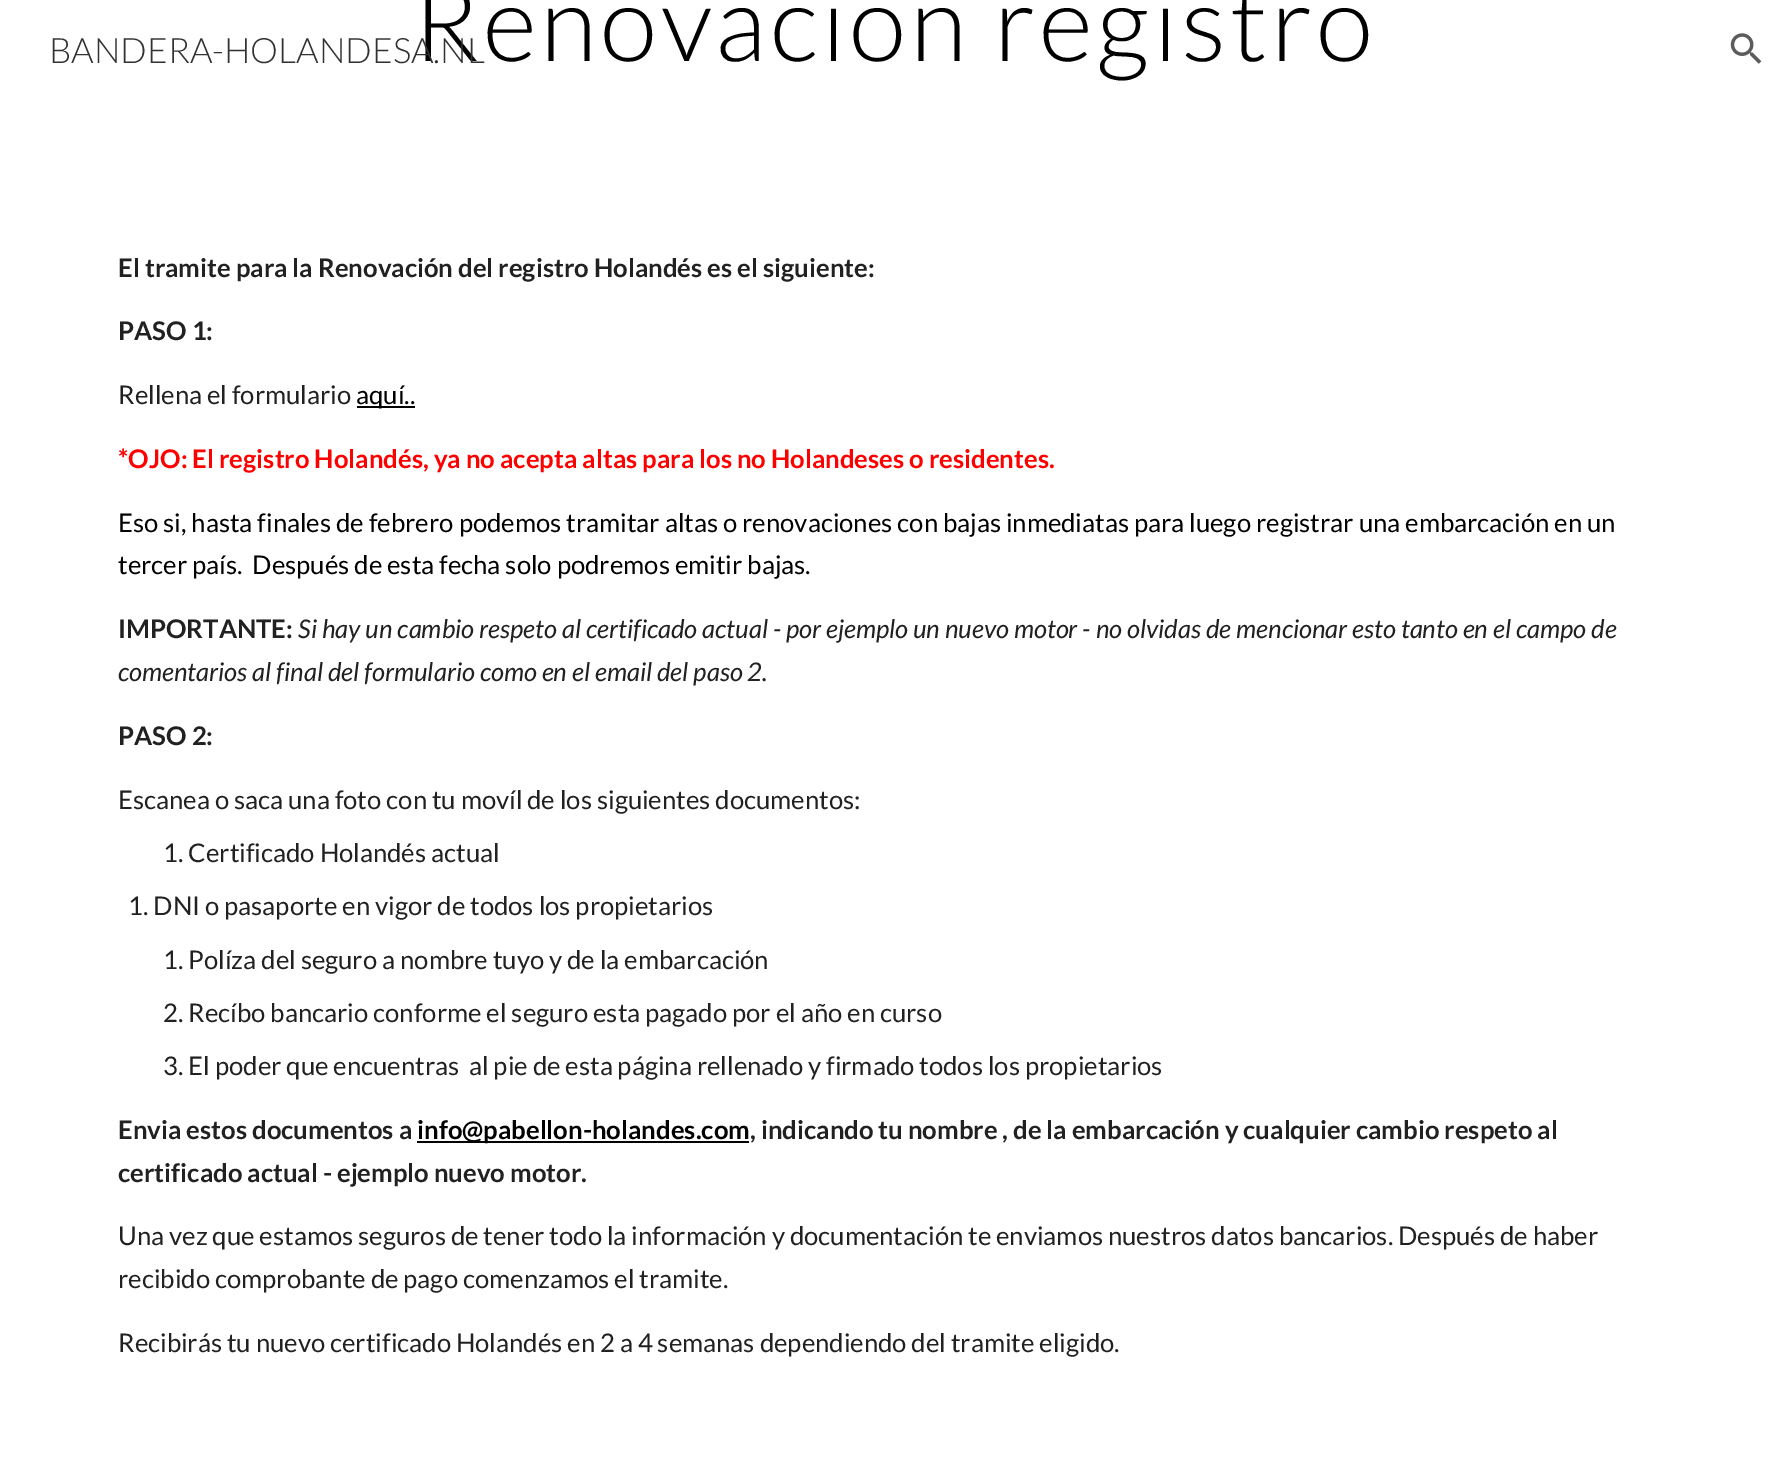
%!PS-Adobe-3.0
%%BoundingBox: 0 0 1787 1459
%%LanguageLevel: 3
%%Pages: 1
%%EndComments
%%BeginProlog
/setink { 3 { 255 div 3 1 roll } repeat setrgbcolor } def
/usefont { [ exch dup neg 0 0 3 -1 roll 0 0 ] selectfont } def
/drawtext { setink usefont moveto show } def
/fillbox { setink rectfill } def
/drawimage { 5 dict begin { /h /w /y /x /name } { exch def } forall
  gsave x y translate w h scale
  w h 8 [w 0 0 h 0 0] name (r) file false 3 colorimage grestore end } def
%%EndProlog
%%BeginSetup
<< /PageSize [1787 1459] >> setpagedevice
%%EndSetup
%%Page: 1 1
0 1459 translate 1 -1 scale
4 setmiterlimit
0 0 1787 1459 255 255 255 fillbox
/Lato-Light 105 usefont
0 0 0 setink
413 61 moveto 3.5 0 (Renovación registro) ashow
(El tramite para la Renovación del registro Holandés es el siguiente:) 118 277 /Lato-Bold 25.67 33 33 33 drawtext
(PASO 1:) 118 340 /Lato-Bold 25.67 33 33 33 drawtext
(Rellena el formulario) 118 404 /Lato-Regular 25.67 33 33 33 drawtext
357 406 58 2 0 0 0 fillbox
(aquí..) 356 404 /Lato-Regular 25.67 0 0 0 drawtext
(*OJO: El registro Holandés, ya no acepta altas para los no Holandeses o residentes.) 118 468 /Lato-Bold 25.67 255 0 0 drawtext
(Eso si, hasta finales de febrero podemos tramitar altas o renovaciones con bajas inmediatas para luego registrar una embarcación en un) 118 532 /Lato-Regular 25.67 0 0 0 drawtext
(tercer país.  Después de esta fecha solo podremos emitir bajas.) 118 574 /Lato-Regular 25.67 0 0 0 drawtext
(IMPORTANTE:) 118 638 /Lato-Bold 25.67 33 33 33 drawtext
(Si hay un cambio respeto al certificado actual - por ejemplo un nuevo motor - no olvidas de mencionar esto tanto en el campo de) 298 638 /Lato-Italic 25.67 33 33 33 drawtext
(comentarios al final del formulario como en el email del paso 2.) 118 681 /Lato-Italic 25.67 33 33 33 drawtext
(PASO 2:) 118 745 /Lato-Bold 25.67 33 33 33 drawtext
(Escanea o saca una foto con tu movíl de los siguientes documentos:) 118 809 /Lato-Regular 25.67 33 33 33 drawtext
(1. Certificado Holandés actual) 163 862 /Lato-Regular 25.67 33 33 33 drawtext
(1. DNI o pasaporte en vigor de todos los propietarios) 128 915 /Lato-Regular 25.67 33 33 33 drawtext
(1. Políza del seguro a nombre tuyo y de la embarcación) 163 969 /Lato-Regular 25.67 33 33 33 drawtext
(2. Recíbo bancario conforme el seguro esta pagado por el año en curso) 163 1022 /Lato-Regular 25.67 33 33 33 drawtext
(3. El poder que encuentras  al pie de esta página rellenado y firmado todos los propietarios) 163 1075 /Lato-Regular 25.67 33 33 33 drawtext
(Envia estos documentos a) 118 1139 /Lato-Bold 25.67 33 33 33 drawtext
417 1141 332 2 0 0 0 fillbox
(info@pabellon-holandes.com) 417 1139 /Lato-Bold 25.67 0 0 0 drawtext
(, indicando tu nombre , de la embarcación y cualquier cambio respeto al) 750 1139 /Lato-Bold 25.67 33 33 33 drawtext
(certificado actual - ejemplo nuevo motor.) 118 1182 /Lato-Bold 25.67 33 33 33 drawtext
(Una vez que estamos seguros de tener todo la información y documentación te enviamos nuestros datos bancarios. Después de haber) 118 1245 /Lato-Regular 25.67 33 33 33 drawtext
(recibido comprobante de pago comenzamos el tramite.) 118 1288 /Lato-Regular 25.67 33 33 33 drawtext
(Recibirás tu nuevo certificado Holandés en 2 a 4 semanas dependiendo del tramite eligido.) 118 1352 /Lato-Regular 25.67 33 33 33 drawtext
(BANDERA-HOLANDESA.NL) 49 63 /Lato-Light 35 50 50 50 drawtext
(assets/img1.rgb) 1730 33 32 31 drawimage
showpage
%%EOF
